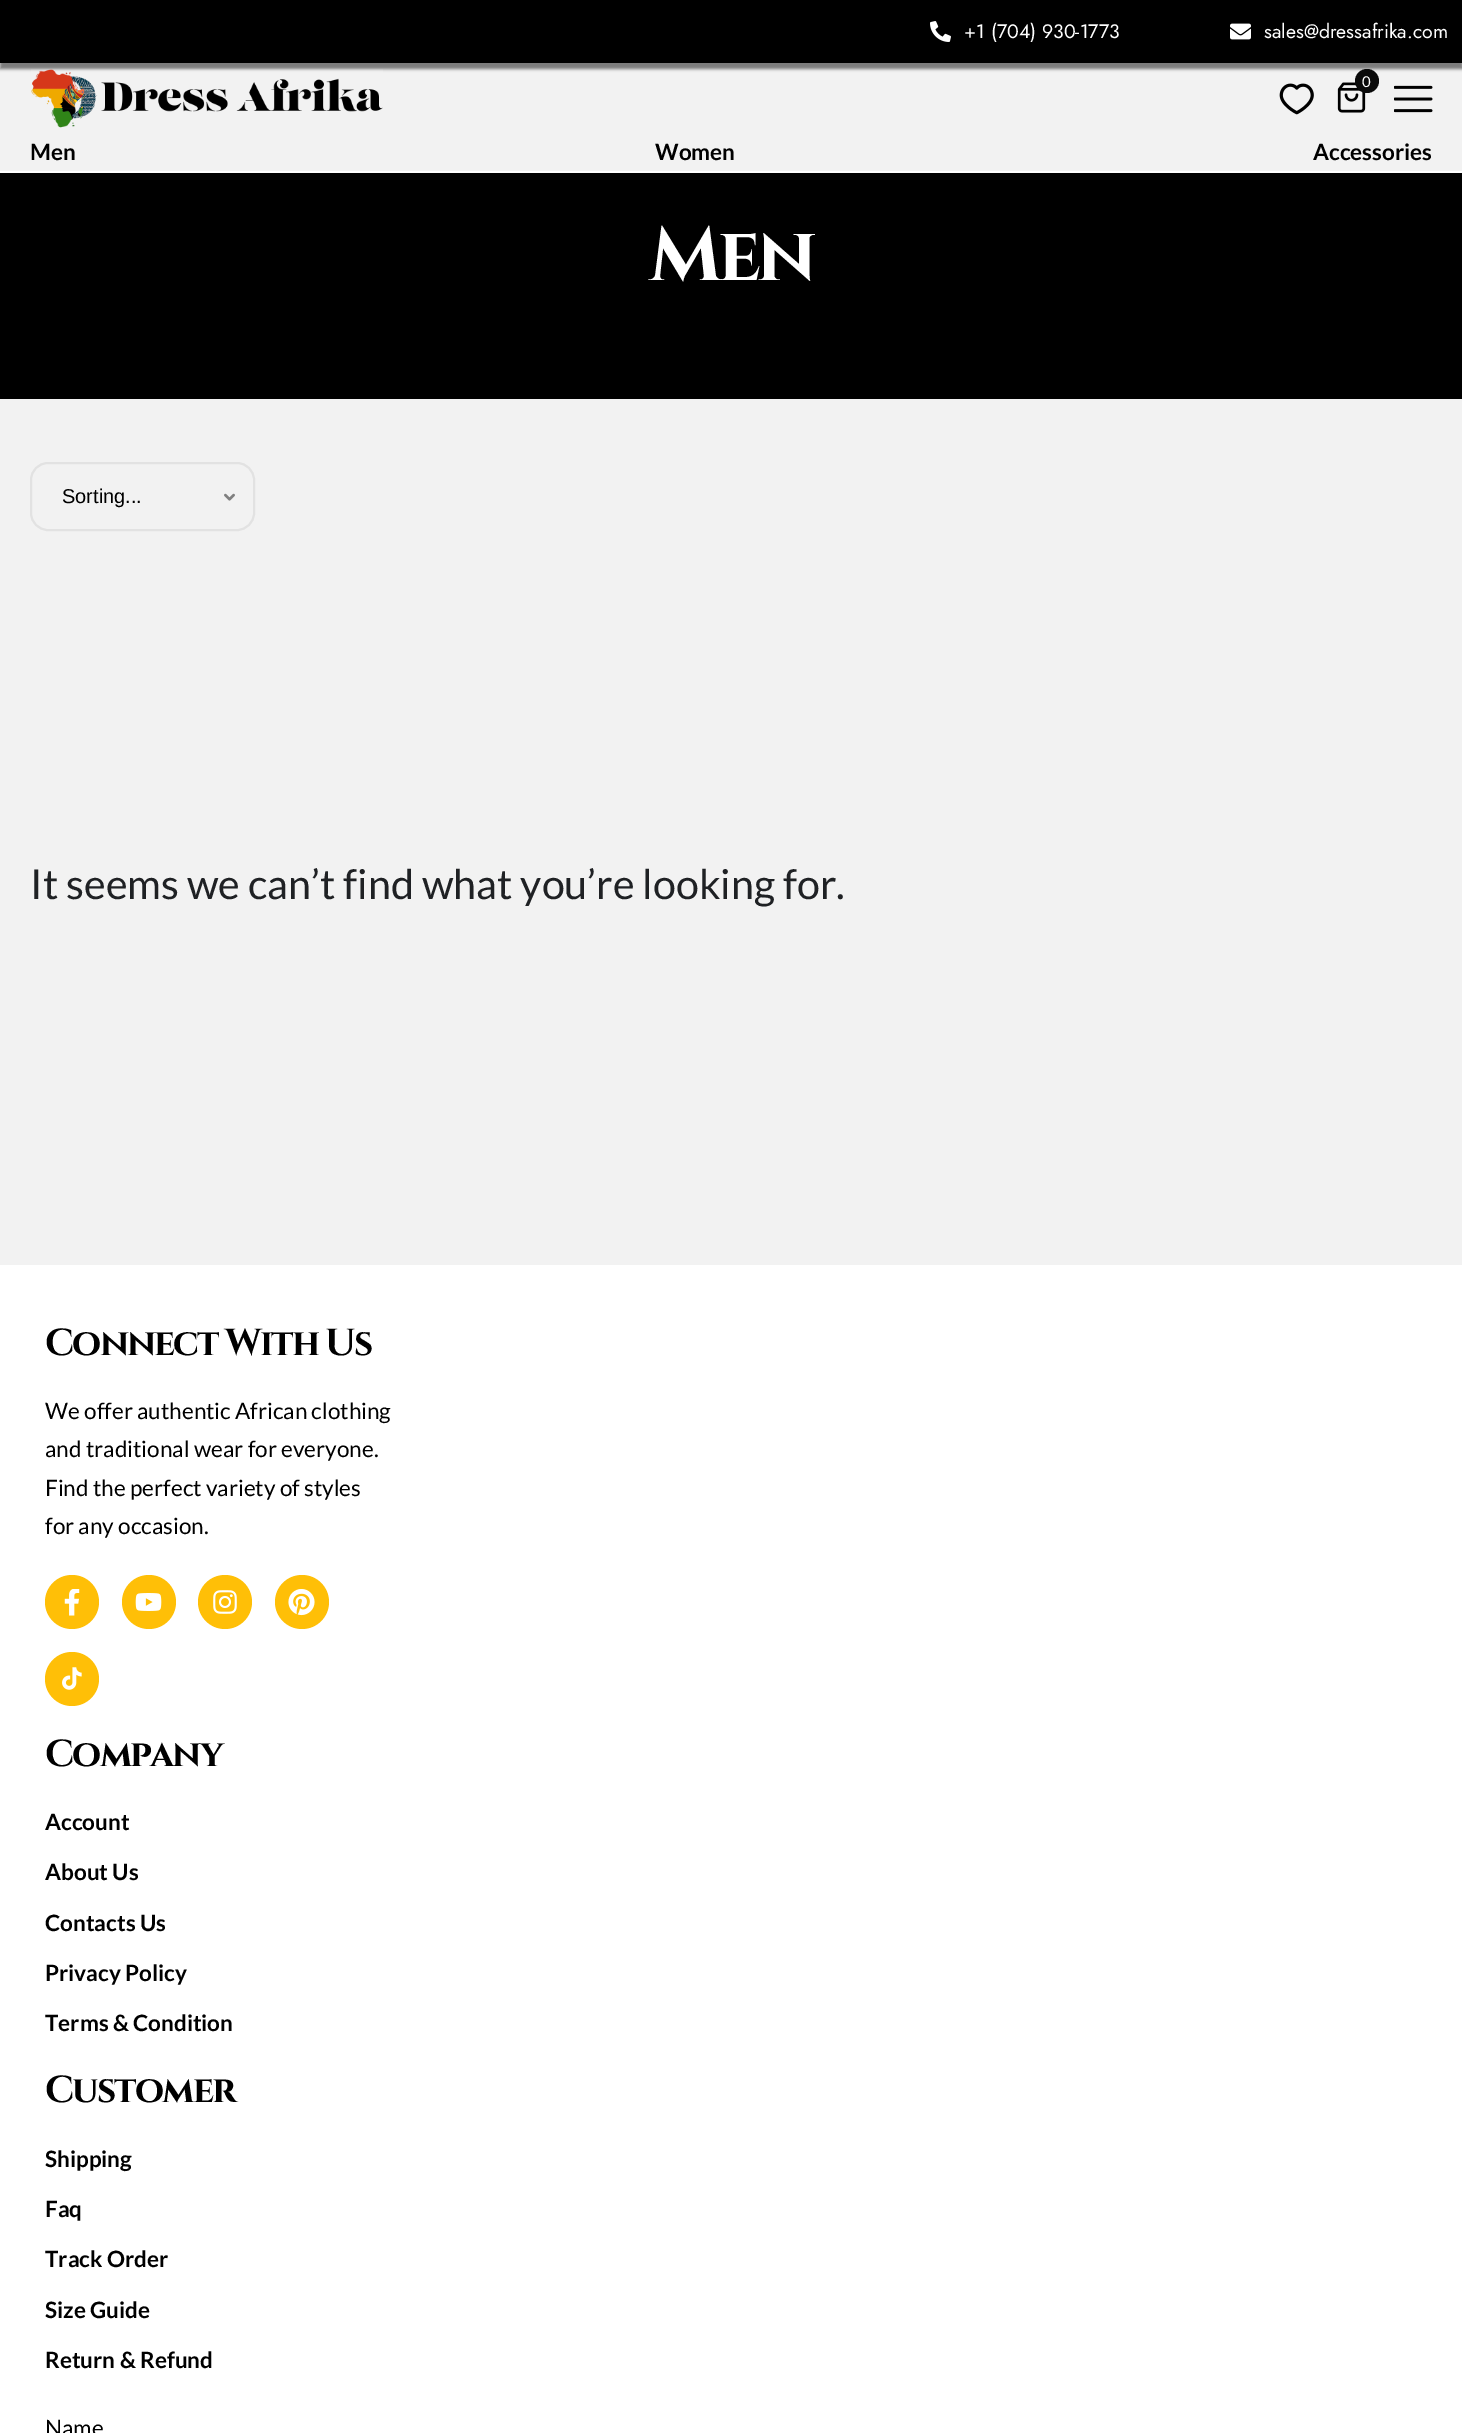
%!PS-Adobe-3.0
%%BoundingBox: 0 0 1462 2433
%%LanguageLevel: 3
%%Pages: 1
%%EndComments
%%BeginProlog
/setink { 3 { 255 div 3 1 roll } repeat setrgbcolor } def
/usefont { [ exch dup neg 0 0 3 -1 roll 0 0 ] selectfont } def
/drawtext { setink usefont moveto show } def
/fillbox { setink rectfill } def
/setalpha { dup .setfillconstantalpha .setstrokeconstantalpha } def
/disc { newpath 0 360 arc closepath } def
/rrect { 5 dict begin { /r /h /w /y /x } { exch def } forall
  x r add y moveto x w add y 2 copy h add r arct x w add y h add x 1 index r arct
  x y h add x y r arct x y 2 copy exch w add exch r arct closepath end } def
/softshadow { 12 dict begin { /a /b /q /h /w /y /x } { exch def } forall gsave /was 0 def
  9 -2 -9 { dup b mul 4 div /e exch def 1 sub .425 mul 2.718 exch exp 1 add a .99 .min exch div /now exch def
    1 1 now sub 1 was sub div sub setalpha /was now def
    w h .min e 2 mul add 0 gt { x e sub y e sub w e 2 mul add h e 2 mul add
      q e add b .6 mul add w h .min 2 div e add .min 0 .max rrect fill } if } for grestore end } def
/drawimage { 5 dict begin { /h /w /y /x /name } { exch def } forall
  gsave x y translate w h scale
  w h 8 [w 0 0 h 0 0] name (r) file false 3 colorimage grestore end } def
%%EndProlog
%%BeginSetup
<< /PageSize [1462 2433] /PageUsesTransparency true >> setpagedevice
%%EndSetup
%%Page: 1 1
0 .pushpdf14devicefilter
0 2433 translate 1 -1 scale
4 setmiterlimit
0 0 1462 2433 242 242 242 fillbox
0 0 0 setink
0 6 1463 63 0 1.5 0.5 softshadow
0 0 1462 63 0 0 0 fillbox
(assets/img1.rgb) 930 21 21 21 drawimage
(+1 \(704\) 930-1773) 964 38 /Jost-Regular 19.5 255 255 255 drawtext
(assets/img2.rgb) 1230 23 21 17 drawimage
(sales@dressafrika.com) 1264 38 /Jost-Regular 19.5 255 255 255 drawtext
(assets/img3.rgb) 31 69 352 59 drawimage
(assets/img4.rgb) 1279 83 35 32 drawimage
(assets/img5.rgb) 1337 82 29 31 drawimage
10 10 10 setink
1367 81 12 disc fill
(0) 1362 87 /Lato-Regular 15 255 255 255 drawtext
(assets/img6.rgb) 1394 85 39 28 drawimage
(Men) 30 160 /Lato-Bold 22.5 0 0 0 drawtext
(Women) 655 160 /Lato-Bold 22.5 0 0 0 drawtext
(Accessories) 1313 160 /Lato-Bold 22.5 0 0 0 drawtext
0 173 1462 226 0 0 0 fillbox
0 171 1462 2 255 255 255 fillbox
/Cinzel-Bold 76.5 usefont
649 280 moveto -4 0 (Men) ashow
(assets/img7.rgb) 224 493 11 8 drawimage
226 226 226 setink
2 setlinewidth
31 463 223 67 17 rrect stroke
(Sorting...) 62 503 /LiberationSans-Regular 20 0 0 0 drawtext
(It seems we can’t find what you’re looking for.) 30 899 /Lato-Regular 41.25 31 33 36 drawtext
0 1265 1462 1168 255 255 255 fillbox
/Cinzel-Bold 37.5 usefont
0 0 0 setink
45 1355 moveto -1.9 0 (Connect With Us) ashow
(We offer authentic African clothing) 45 1419 /Lato-Regular 22.5 0 0 0 drawtext
(and traditional wear for everyone.) 45 1457 /Lato-Regular 22.5 0 0 0 drawtext
(Find the perfect variety of styles) 45 1496 /Lato-Regular 22.5 0 0 0 drawtext
(for any occasion.) 45 1534 /Lato-Regular 22.5 0 0 0 drawtext
255 191 7 setink
72 1602 27 disc fill
(assets/img8.rgb) 64 1589 16 27 drawimage
149 1602 27 disc fill
(assets/img9.rgb) 135 1593 27 18 drawimage
225 1602 27 disc fill
(assets/img10.rgb) 213 1590 24 24 drawimage
302 1602 27 disc fill
(assets/img11.rgb) 288 1589 27 27 drawimage
72 1679 27 disc fill
(assets/img12.rgb) 62 1667 20 23 drawimage
/Cinzel-Bold 37.5 usefont
0 0 0 setink
45 1766 moveto -1.9 0 (Company) ashow
(Account) 45 1830 /Lato-Bold 22.5 0 0 0 drawtext
(About Us) 45 1880 /Lato-Bold 22.5 0 0 0 drawtext
(Contacts Us) 45 1931 /Lato-Bold 22.5 0 0 0 drawtext
(Privacy Policy) 45 1981 /Lato-Bold 22.5 0 0 0 drawtext
(Terms & Condition) 45 2031 /Lato-Bold 22.5 0 0 0 drawtext
/Cinzel-Bold 37.5 usefont
45 2102 moveto -1.9 0 (Customer) ashow
(Shipping) 45 2167 /Lato-Bold 22.5 0 0 0 drawtext
(Faq) 45 2217 /Lato-Bold 22.5 0 0 0 drawtext
(Track Order) 45 2267 /Lato-Bold 22.5 0 0 0 drawtext
(Size Guide) 45 2318 /Lato-Bold 22.5 0 0 0 drawtext
(Return & Refund) 45 2368 /Lato-Bold 22.5 0 0 0 drawtext
(Name) 45 2436 /Lato-Regular 22.5 0 0 0 drawtext
.poppdf14devicefilter showpage
%%EOF
